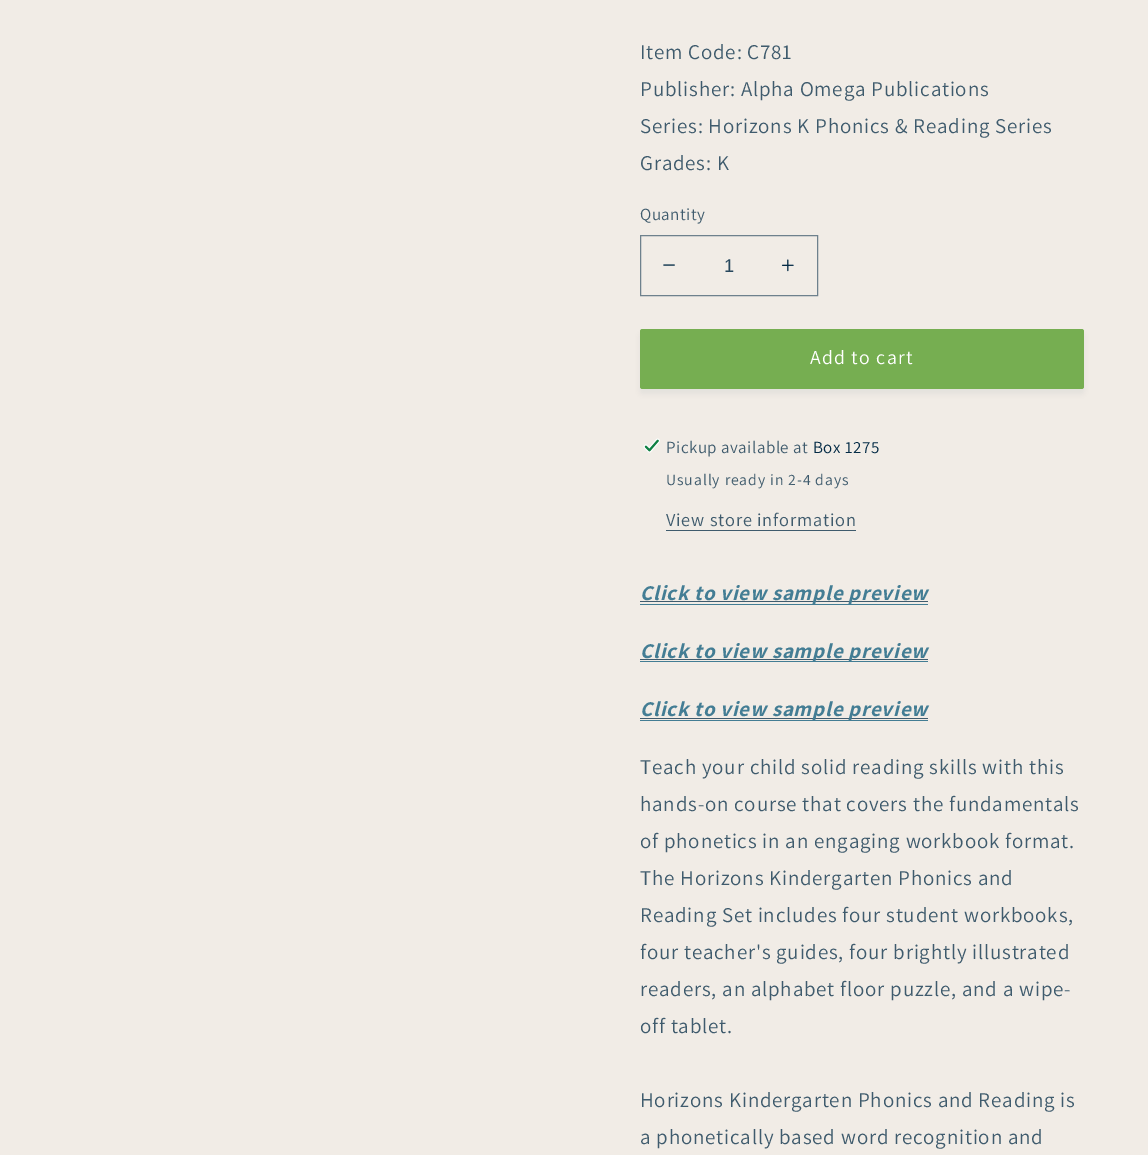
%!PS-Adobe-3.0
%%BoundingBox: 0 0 1148 1155
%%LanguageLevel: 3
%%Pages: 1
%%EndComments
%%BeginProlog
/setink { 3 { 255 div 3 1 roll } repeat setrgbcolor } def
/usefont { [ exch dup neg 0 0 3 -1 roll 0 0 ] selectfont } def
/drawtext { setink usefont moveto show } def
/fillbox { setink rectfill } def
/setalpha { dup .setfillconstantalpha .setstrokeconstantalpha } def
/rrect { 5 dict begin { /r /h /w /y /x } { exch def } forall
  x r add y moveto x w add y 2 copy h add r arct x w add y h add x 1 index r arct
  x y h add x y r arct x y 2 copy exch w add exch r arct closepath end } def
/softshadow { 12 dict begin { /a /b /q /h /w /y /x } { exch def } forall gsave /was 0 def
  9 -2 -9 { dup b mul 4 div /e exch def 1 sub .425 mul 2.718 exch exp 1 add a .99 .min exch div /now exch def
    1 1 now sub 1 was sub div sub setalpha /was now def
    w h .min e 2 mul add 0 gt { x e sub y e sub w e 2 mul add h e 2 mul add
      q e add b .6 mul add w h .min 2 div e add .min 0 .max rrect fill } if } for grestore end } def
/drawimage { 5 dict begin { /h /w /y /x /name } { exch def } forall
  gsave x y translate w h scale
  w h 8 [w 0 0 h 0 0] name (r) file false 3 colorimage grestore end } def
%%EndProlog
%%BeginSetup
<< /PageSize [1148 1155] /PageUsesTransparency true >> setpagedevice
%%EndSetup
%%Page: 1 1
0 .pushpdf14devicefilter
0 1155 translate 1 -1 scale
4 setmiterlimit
0 0 1148 1155 241 236 230 fillbox
/Assistant-Regular 21 usefont
63 91 109 setink
640 59 moveto 0.8 0 (Item Code: C781) ashow
640 96 moveto 0.8 0 (Publisher: Alpha Omega Publications) ashow
640 133 moveto 0.8 0 (Series: Horizons K Phonics & Reading Series) ashow
640 170 moveto 0.8 0 (Grades: K) ashow
/Assistant-Regular 17 usefont
640 220 moveto 0.5 0 (Quantity) ashow
(assets/img1.rgb) 663 264 12 2 drawimage
(assets/img2.rgb) 781 259 13 13 drawimage
110 129 141 setink
640.5 235.5 177 60 rectstroke
(1) 724 272 /LiberationSans-Regular 18.4 39 71 93 drawtext
3 42 69 setink
640 334 444 60 2.5 3 0.05 softshadow
118 174 81 setink
640 329 444 60 2.5 rrect fill
/Assistant-Regular 19.75 usefont
255 255 255 setink
810 364 moveto 1.25 0 (Add to cart) ashow
(assets/img3.rgb) 643 438 17 15 drawimage
/Assistant-Regular 17 usefont
63 91 109 setink
666 453 moveto 0.5 0 (Pickup available at) ashow
3 42 69 setink
813 453 moveto 0.5 0 (Box 1275) ashow
/Assistant-Regular 15.75 usefont
63 91 109 setink
666 485 moveto 0.9 0 (Usually ready in 2-4 days) ashow
/Assistant-Regular 18.4 usefont
666 526 moveto 0.8 0 (View store information) ashow
666 530 190 1 63 91 109 fillbox
640 601 288 1 63 91 109 fillbox
/Assistant-BoldItalic 21 usefont
67 125 148 setink
640 600 moveto 0.8 0 (Click to view sample preview) ashow
640 604 288 1 67 125 148 fillbox
640 661 288 1 67 125 148 fillbox
640 659 288 1 63 91 109 fillbox
67 125 148 setink
640 658 moveto 0.8 0 (Click to view sample preview) ashow
640 718 288 1 63 91 109 fillbox
67 125 148 setink
640 716 moveto 0.8 0 (Click to view sample preview) ashow
640 720 288 1 67 125 148 fillbox
/Assistant-Regular 21 usefont
63 91 109 setink
640 774 moveto 0.8 0 (Teach your child solid reading skills with this) ashow
640 811 moveto 0.8 0 (hands-on course that covers the fundamentals) ashow
640 848 moveto 0.8 0 (of phonetics in an engaging workbook format.) ashow
640 885 moveto 0.8 0 (The Horizons Kindergarten Phonics and) ashow
640 922 moveto 0.8 0 (Reading Set includes four student workbooks,) ashow
640 959 moveto 0.8 0 (four teacher's guides, four brightly illustrated) ashow
640 996 moveto 0.8 0 (readers, an alphabet floor puzzle, and a wipe-) ashow
640 1033 moveto 0.8 0 (off tablet.) ashow
640 1107 moveto 0.8 0 (Horizons Kindergarten Phonics and Reading is) ashow
640 1144 moveto 0.8 0 (a phonetically based word recognition and) ashow
.poppdf14devicefilter showpage
%%EOF
